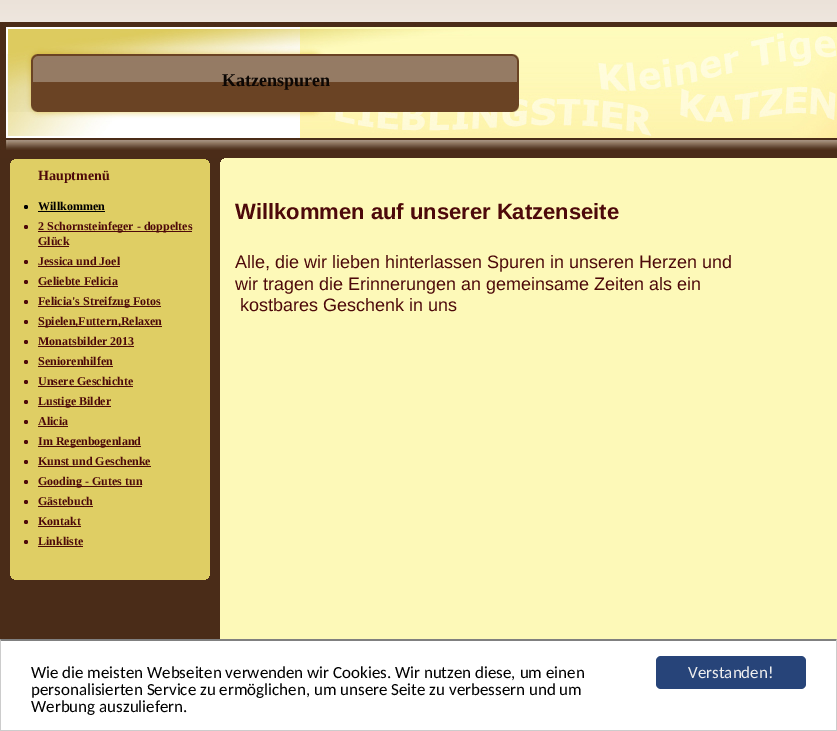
%!PS-Adobe-3.0
%%BoundingBox: 0 0 837 731
%%LanguageLevel: 3
%%Pages: 1
%%EndComments
%%BeginProlog
/setink { 3 { 255 div 3 1 roll } repeat setrgbcolor } def
/usefont { [ exch dup neg 0 0 3 -1 roll 0 0 ] selectfont } def
/drawtext { setink usefont moveto show } def
/fillbox { setink rectfill } def
/disc { newpath 0 360 arc closepath } def
/rrect { 5 dict begin { /r /h /w /y /x } { exch def } forall
  x r add y moveto x w add y 2 copy h add r arct x w add y h add x 1 index r arct
  x y h add x y r arct x y 2 copy exch w add exch r arct closepath end } def
/drawimage { 5 dict begin { /h /w /y /x /name } { exch def } forall
  gsave x y translate w h scale
  w h 8 [w 0 0 h 0 0] name (r) file false 3 colorimage grestore end } def
%%EndProlog
%%BeginSetup
<< /PageSize [837 731] >> setpagedevice
%%EndSetup
%%Page: 1 1
0 731 translate 1 -1 scale
4 setmiterlimit
0 0 837 731 255 255 255 fillbox
(assets/img1.rgb) 0 0 837 22 drawimage
(assets/img2.rgb) 0 22 837 136 drawimage
(Katzenspuren) 222 86 /LiberationSerif-Bold 18 12 7 4 drawtext
0 158 220 483 74 44 24 fillbox
10 163 200 413 223 206 100 fillbox
(assets/img3.rgb) 10 158 200 5 drawimage
(Hauptmenü) 38 180 /LiberationSerif-Bold 14 77 9 10 drawtext
0 0 0 setink
26 207 2 disc fill
(Willkommen) 38 210 /LiberationSerif-Bold 12 0 0 0 drawtext
38 211 67 1 0 0 0 fillbox
77 9 10 setink
26 227 2 disc fill
38 231 154 1 77 9 10 fillbox
(2 Schornsteinfeger - doppeltes) 38 230 /LiberationSerif-Bold 12 77 9 10 drawtext
(Glück) 38 245 /LiberationSerif-Bold 12 77 9 10 drawtext
38 246 31 1 77 9 10 fillbox
26 262 2 disc fill
(Jessica und Joel) 38 265 /LiberationSerif-Bold 12 77 9 10 drawtext
38 266 82 1 77 9 10 fillbox
26 282 2 disc fill
(Geliebte Felicia) 38 285 /LiberationSerif-Bold 12 77 9 10 drawtext
38 286 80 1 77 9 10 fillbox
26 302 2 disc fill
38 306 123 1 77 9 10 fillbox
(Felicia's Streifzug Fotos) 38 305 /LiberationSerif-Bold 12 77 9 10 drawtext
26 322 2 disc fill
38 326 124 1 77 9 10 fillbox
(Spielen,Futtern,Relaxen) 38 325 /LiberationSerif-Bold 12 77 9 10 drawtext
26 342 2 disc fill
(Monatsbilder 2013) 38 345 /LiberationSerif-Bold 12 77 9 10 drawtext
38 346 96 1 77 9 10 fillbox
26 362 2 disc fill
(Seniorenhilfen) 38 365 /LiberationSerif-Bold 12 77 9 10 drawtext
38 366 75 1 77 9 10 fillbox
26 382 2 disc fill
(Unsere Geschichte) 38 385 /LiberationSerif-Bold 12 77 9 10 drawtext
38 386 95 1 77 9 10 fillbox
26 402 2 disc fill
38 406 73 1 77 9 10 fillbox
(Lustige Bilder) 38 405 /LiberationSerif-Bold 12 77 9 10 drawtext
26 422 2 disc fill
(Alicia) 38 425 /LiberationSerif-Bold 12 77 9 10 drawtext
38 426 30 1 77 9 10 fillbox
26 442 2 disc fill
38 446 103 1 77 9 10 fillbox
(Im Regenbogenland) 38 445 /LiberationSerif-Bold 12 77 9 10 drawtext
26 462 2 disc fill
(Kunst und Geschenke) 38 465 /LiberationSerif-Bold 12 77 9 10 drawtext
38 466 113 1 77 9 10 fillbox
26 482 2 disc fill
38 486 104 1 77 9 10 fillbox
(Gooding - Gutes tun) 38 485 /LiberationSerif-Bold 12 77 9 10 drawtext
26 502 2 disc fill
(Gästebuch) 38 505 /LiberationSerif-Bold 12 77 9 10 drawtext
38 506 55 1 77 9 10 fillbox
26 522 2 disc fill
(Kontakt) 38 525 /LiberationSerif-Bold 12 77 9 10 drawtext
38 526 43 1 77 9 10 fillbox
26 542 2 disc fill
(Linkliste) 38 545 /LiberationSerif-Bold 12 77 9 10 drawtext
38 546 45 1 77 9 10 fillbox
(assets/img4.rgb) 10 576 200 4 drawimage
220 158 617 483 253 249 184 fillbox
(assets/img5.rgb) 220 158 4 4 drawimage
(Willkommen auf unserer Katzenseite) 235 219 /LiberationSans-Bold 22 77 9 10 drawtext
(Alle, die wir lieben hinterlassen Spuren in unseren Herzen und) 235 268 /LiberationSans-Regular 18 77 9 10 drawtext
(wir tragen die Erinnerungen an gemeinsame Zeiten als ein) 235 290 /LiberationSans-Regular 18 77 9 10 drawtext
(kostbares Geschenk in uns) 240 311 /LiberationSans-Regular 18 77 9 10 drawtext
128 128 128 setink
0 639 moveto 837 639 lineto 836 641 lineto 1 641 lineto closepath fill
204 204 204 setink
837 639 moveto 837 731 lineto 836 730 lineto 836 641 lineto closepath fill
0 730 837 1 204 204 204 fillbox
0 731 moveto 0 639 lineto 1 641 lineto 1 730 lineto closepath fill
(Wie die meisten Webseiten verwenden wir Cookies. Wir nutzen diese, um einen) 31 678 /Carlito-Regular 17 0 0 0 drawtext
(personalisierten Service zu ermöglichen, um unsere Seite zu verbessern und um) 31 695 /Carlito-Regular 17 0 0 0 drawtext
(Werbung auszuliefern.) 31 712 /Carlito-Regular 17 0 0 0 drawtext
39 68 121 setink
656 656 150 33 5 rrect fill
(Verstanden!) 688 678 /Carlito-Regular 17 238 238 238 drawtext
showpage
%%EOF
